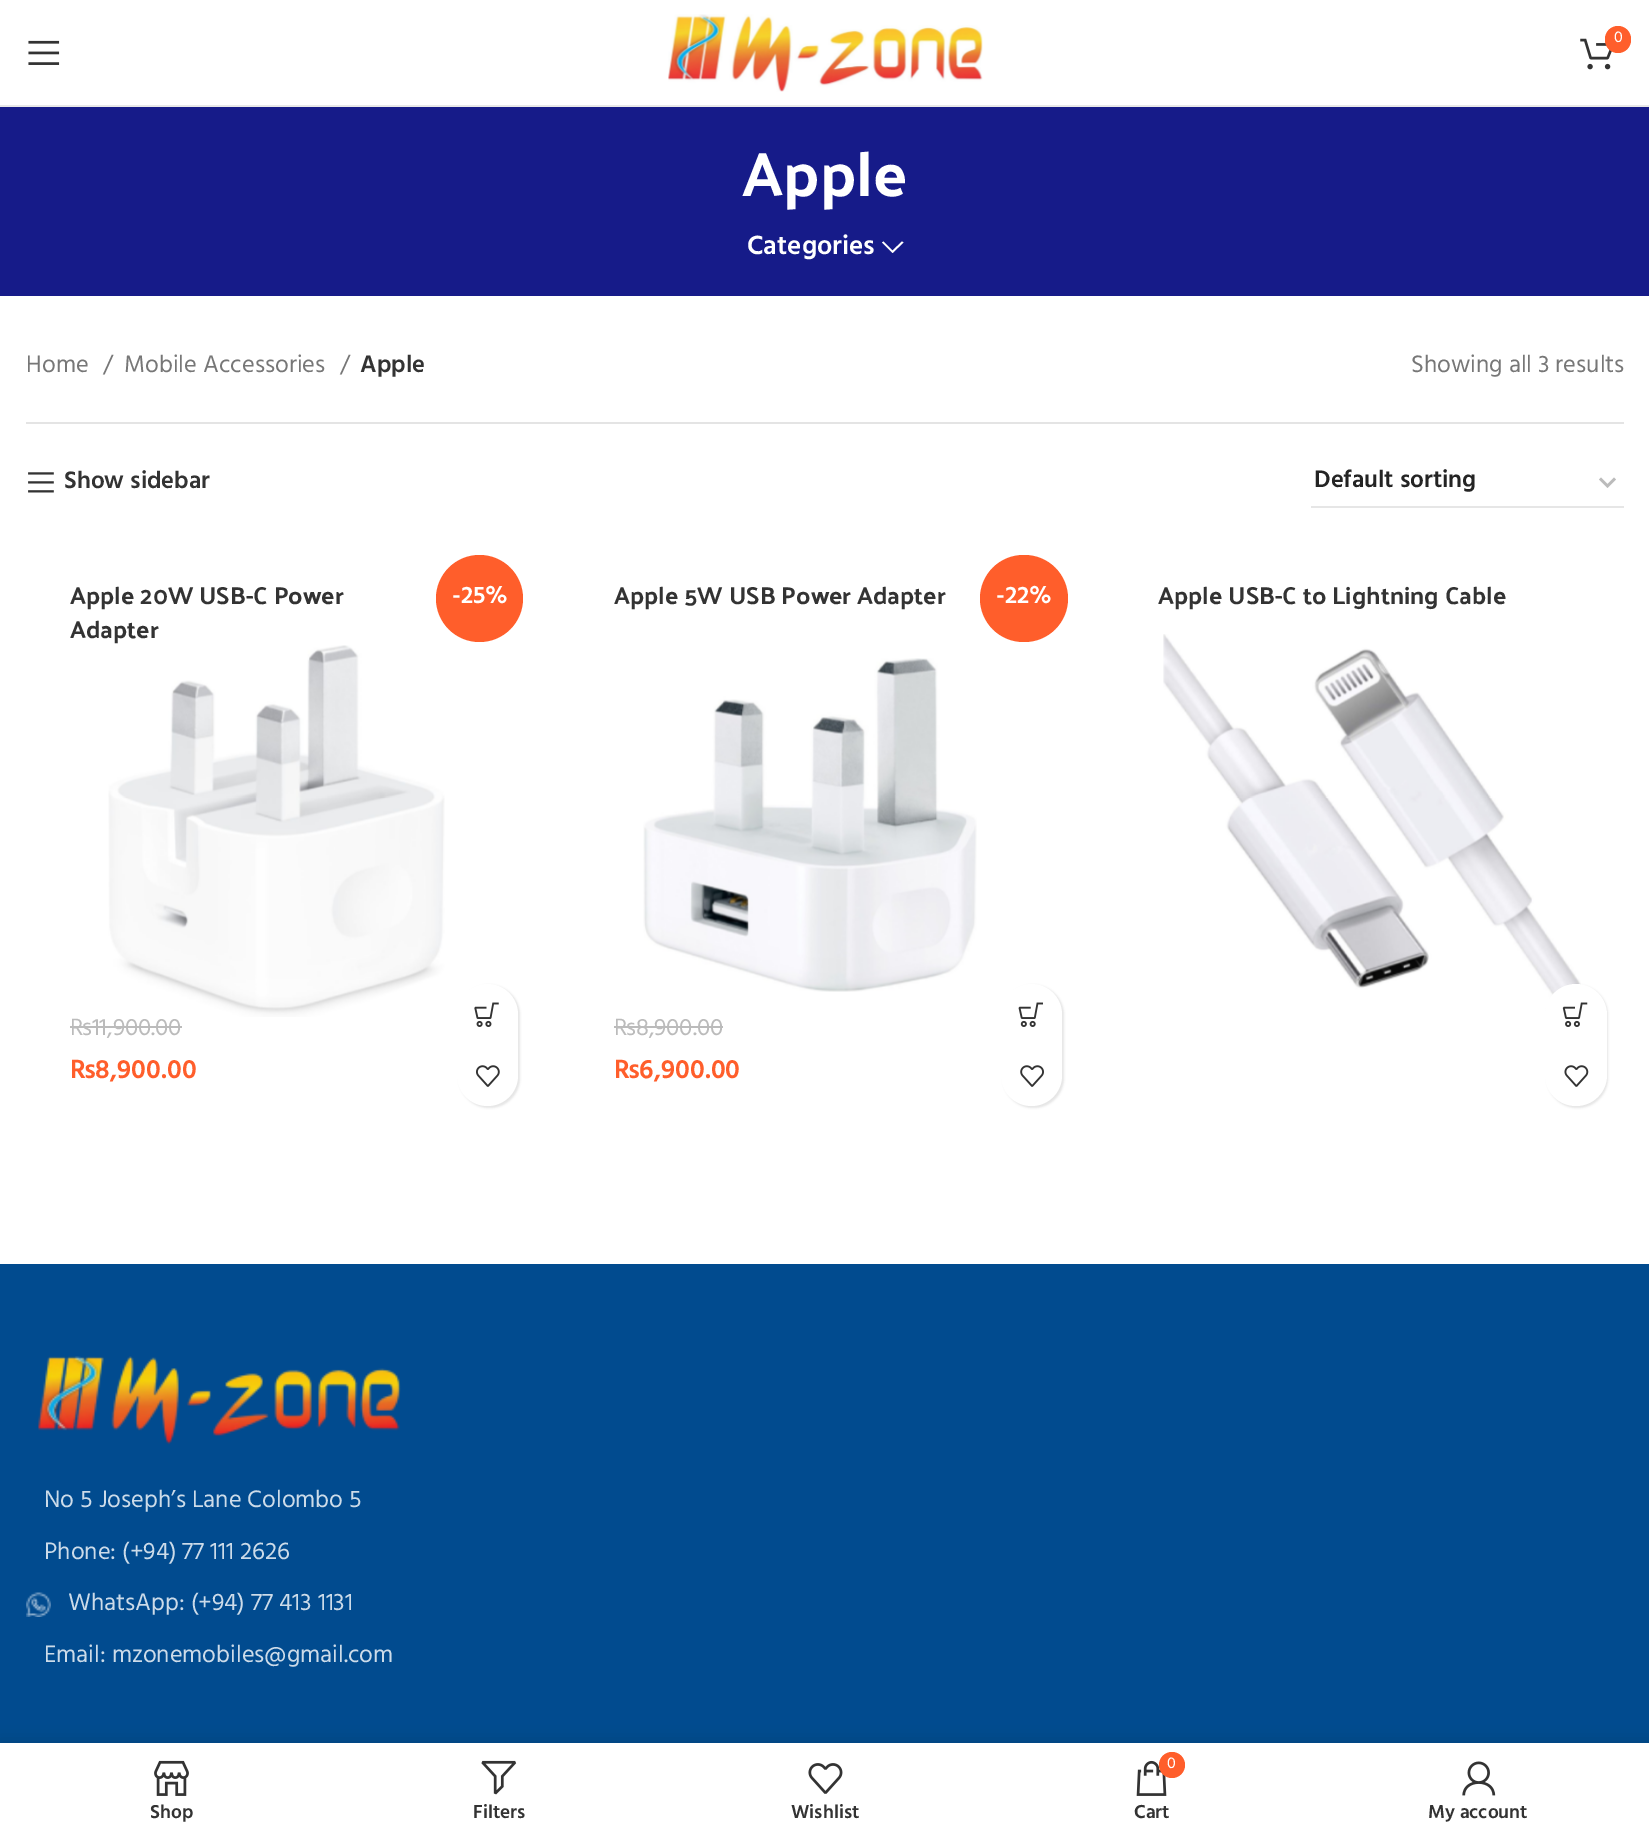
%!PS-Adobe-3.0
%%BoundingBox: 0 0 1649 1839
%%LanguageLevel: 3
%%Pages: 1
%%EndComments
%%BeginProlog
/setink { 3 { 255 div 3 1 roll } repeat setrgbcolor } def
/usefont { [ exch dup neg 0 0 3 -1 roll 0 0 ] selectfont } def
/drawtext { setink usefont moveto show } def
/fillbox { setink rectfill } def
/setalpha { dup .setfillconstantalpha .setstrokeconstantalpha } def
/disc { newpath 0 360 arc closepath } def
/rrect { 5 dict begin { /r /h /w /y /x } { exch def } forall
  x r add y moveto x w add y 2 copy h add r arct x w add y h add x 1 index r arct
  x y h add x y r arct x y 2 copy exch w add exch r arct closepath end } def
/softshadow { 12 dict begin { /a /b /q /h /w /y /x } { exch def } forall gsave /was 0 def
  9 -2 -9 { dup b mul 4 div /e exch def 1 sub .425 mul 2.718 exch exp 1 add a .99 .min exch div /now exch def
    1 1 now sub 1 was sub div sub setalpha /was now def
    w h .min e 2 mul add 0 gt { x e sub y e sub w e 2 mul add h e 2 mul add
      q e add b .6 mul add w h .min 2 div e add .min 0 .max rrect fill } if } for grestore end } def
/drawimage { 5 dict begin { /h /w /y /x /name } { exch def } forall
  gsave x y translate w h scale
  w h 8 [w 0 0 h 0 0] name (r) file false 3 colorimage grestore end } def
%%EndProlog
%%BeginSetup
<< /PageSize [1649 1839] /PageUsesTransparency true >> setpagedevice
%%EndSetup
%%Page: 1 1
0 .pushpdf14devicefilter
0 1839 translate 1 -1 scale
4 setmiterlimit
0 0 1649 1839 255 255 255 fillbox
0 105 1649 2 232 232 232 fillbox
(assets/img1.rgb) 668 14 315 78 drawimage
(assets/img2.rgb) 1580 38 32 32 drawimage
255 94 43 setink
1605 26 26 27 13 rrect fill
(0) 1614 42 /Hind-Regular 16 255 255 255 drawtext
(assets/img3.rgb) 28 40 32 25 drawimage
0 107 1649 189 22 27 137 fillbox
(Apple) 742 196 /PalanquinDark-Regular 63 255 255 255 drawtext
(Categories) 747 254 /Hind-SemiBold 27 255 255 255 drawtext
902 241.5 moveto 892.5 250.5 lineto 883.5 241.5 lineto 882 242.5 lineto 892.5 253 lineto 903.5 242.5 lineto closepath fill
26 422 1598 2 228 228 228 fillbox
(Home) 26 372 /Hind-Regular 24.5 119 119 119 drawtext
(/) 103 372 /Hind-Regular 24.5 119 119 119 drawtext
(Mobile Accessories) 124 372 /Hind-Regular 24.5 119 119 119 drawtext
(/) 340 372 /Hind-Regular 24.5 119 119 119 drawtext
(Apple) 360 372 /Hind-SemiBold 24.5 51 51 51 drawtext
(Showing all 3 results) 1411 372 /Hind-Regular 24.5 119 119 119 drawtext
(assets/img4.rgb) 28 472 26 21 drawimage
(Show sidebar) 64 488 /Hind-SemiBold 24.5 51 51 51 drawtext
187 187 187 setink
2.5 setlinewidth
1600 478.5 moveto 1607.5 486 lineto 1615 478.5 lineto stroke
1311 506 313 2 230 230 230 fillbox
(Default sorting) 1314 487 /Hind-SemiBold 24.5 36 36 36 drawtext
(Apple 20W USB-C Power) 70 604 /PalanquinDark-Regular 24.5 51 51 51 drawtext
(Adapter) 70 638 /PalanquinDark-Regular 24.5 51 51 51 drawtext
255 94 43 setink
479.5 598.5 43.5 disc fill
(-25%) 452 603 /Hind-SemiBold 24.5 255 255 255 drawtext
(assets/img5.rgb) 108 645 337 372 drawimage
(₨11,900.00) 70 1035 /Hind-Regular 24.25 187 187 187 drawtext
70 1026 112 2 187 187 187 fillbox
(₨8,900.00) 70 1078 /Hind-SemiBold 27 255 94 43 drawtext
0 0 0 setink
459 985 61 123 30.5 1 0.1 softshadow
255 255 255 setink
457 984 61 122 30.5 rrect fill
(assets/img6.rgb) 474 1002 25 25 drawimage
(assets/img7.rgb) 476 1065 24 22 drawimage
(Apple 5W USB Power Adapter) 614 604 /PalanquinDark-Regular 24.5 51 51 51 drawtext
255 94 43 setink
980 555 88 87 43.5 rrect fill
(-22%) 996 603 /Hind-SemiBold 24.5 255 255 255 drawtext
(assets/img8.rgb) 643 658 334 334 drawimage
(₨8,900.00) 614 1035 /Hind-Regular 24.25 187 187 187 drawtext
614 1026 109 2 187 187 187 fillbox
(₨6,900.00) 614 1078 /Hind-SemiBold 27 255 94 43 drawtext
0 0 0 setink
1003 985 61 123 30.5 1 0.1 softshadow
255 255 255 setink
1001 984 61 122 30.5 rrect fill
(assets/img9.rgb) 1018 1002 25 25 drawimage
(assets/img10.rgb) 1020 1065 24 22 drawimage
(Apple USB-C to Lightning Cable) 1158 604 /PalanquinDark-Regular 24.5 51 51 51 drawtext
(assets/img11.rgb) 1163 634 418 399 drawimage
0 0 0 setink
1547 985 61 123 30.5 1 0.1 softshadow
255 255 255 setink
1545 984 62 122 31 rrect fill
(assets/img12.rgb) 1562 1002 26 25 drawimage
(assets/img13.rgb) 1564 1065 25 22 drawimage
0 1264 1649 479 1 75 143 fillbox
(assets/img14.rgb) 38 1356 363 89 drawimage
(No 5 Joseph’s Lane Colombo 5) 44 1507 /Hind-Regular 24.5 204 219 233 drawtext
(Phone: \(+94\) 77 111 2626) 44 1559 /Hind-Regular 24.5 204 219 233 drawtext
(assets/img15.rgb) 26 1592 25 25 drawimage
(WhatsApp: \(+94\) 77 413 1131) 68 1610 /Hind-Regular 24.5 204 219 233 drawtext
(Email: mzonemobiles@gmail.com) 44 1662 /Hind-Regular 24.5 204 219 233 drawtext
0 0 0 setink
0 1743 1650 96 0 8 0.12 softshadow
0 1743 1649 96 255 255 255 fillbox
(assets/img16.rgb) 154 1760 35 36 drawimage
(Shop) 150 1818 /Hind-SemiBold 19.25 51 51 51 drawtext
(assets/img17.rgb) 481 1760 36 35 drawimage
(Filters) 473 1818 /Hind-SemiBold 19.25 51 51 51 drawtext
(assets/img18.rgb) 808 1763 35 31 drawimage
(Wishlist) 791 1818 /Hind-SemiBold 19.25 51 51 51 drawtext
(assets/img19.rgb) 1136 1760 31 36 drawimage
255 94 43 setink
1172 1765 13 disc fill
(0) 1167 1768 /Hind-Regular 16 255 255 255 drawtext
(Cart) 1134 1818 /Hind-SemiBold 19.25 51 51 51 drawtext
(assets/img20.rgb) 1462 1761 34 35 drawimage
(My account) 1428 1818 /Hind-SemiBold 19.25 51 51 51 drawtext
.poppdf14devicefilter showpage
%%EOF
